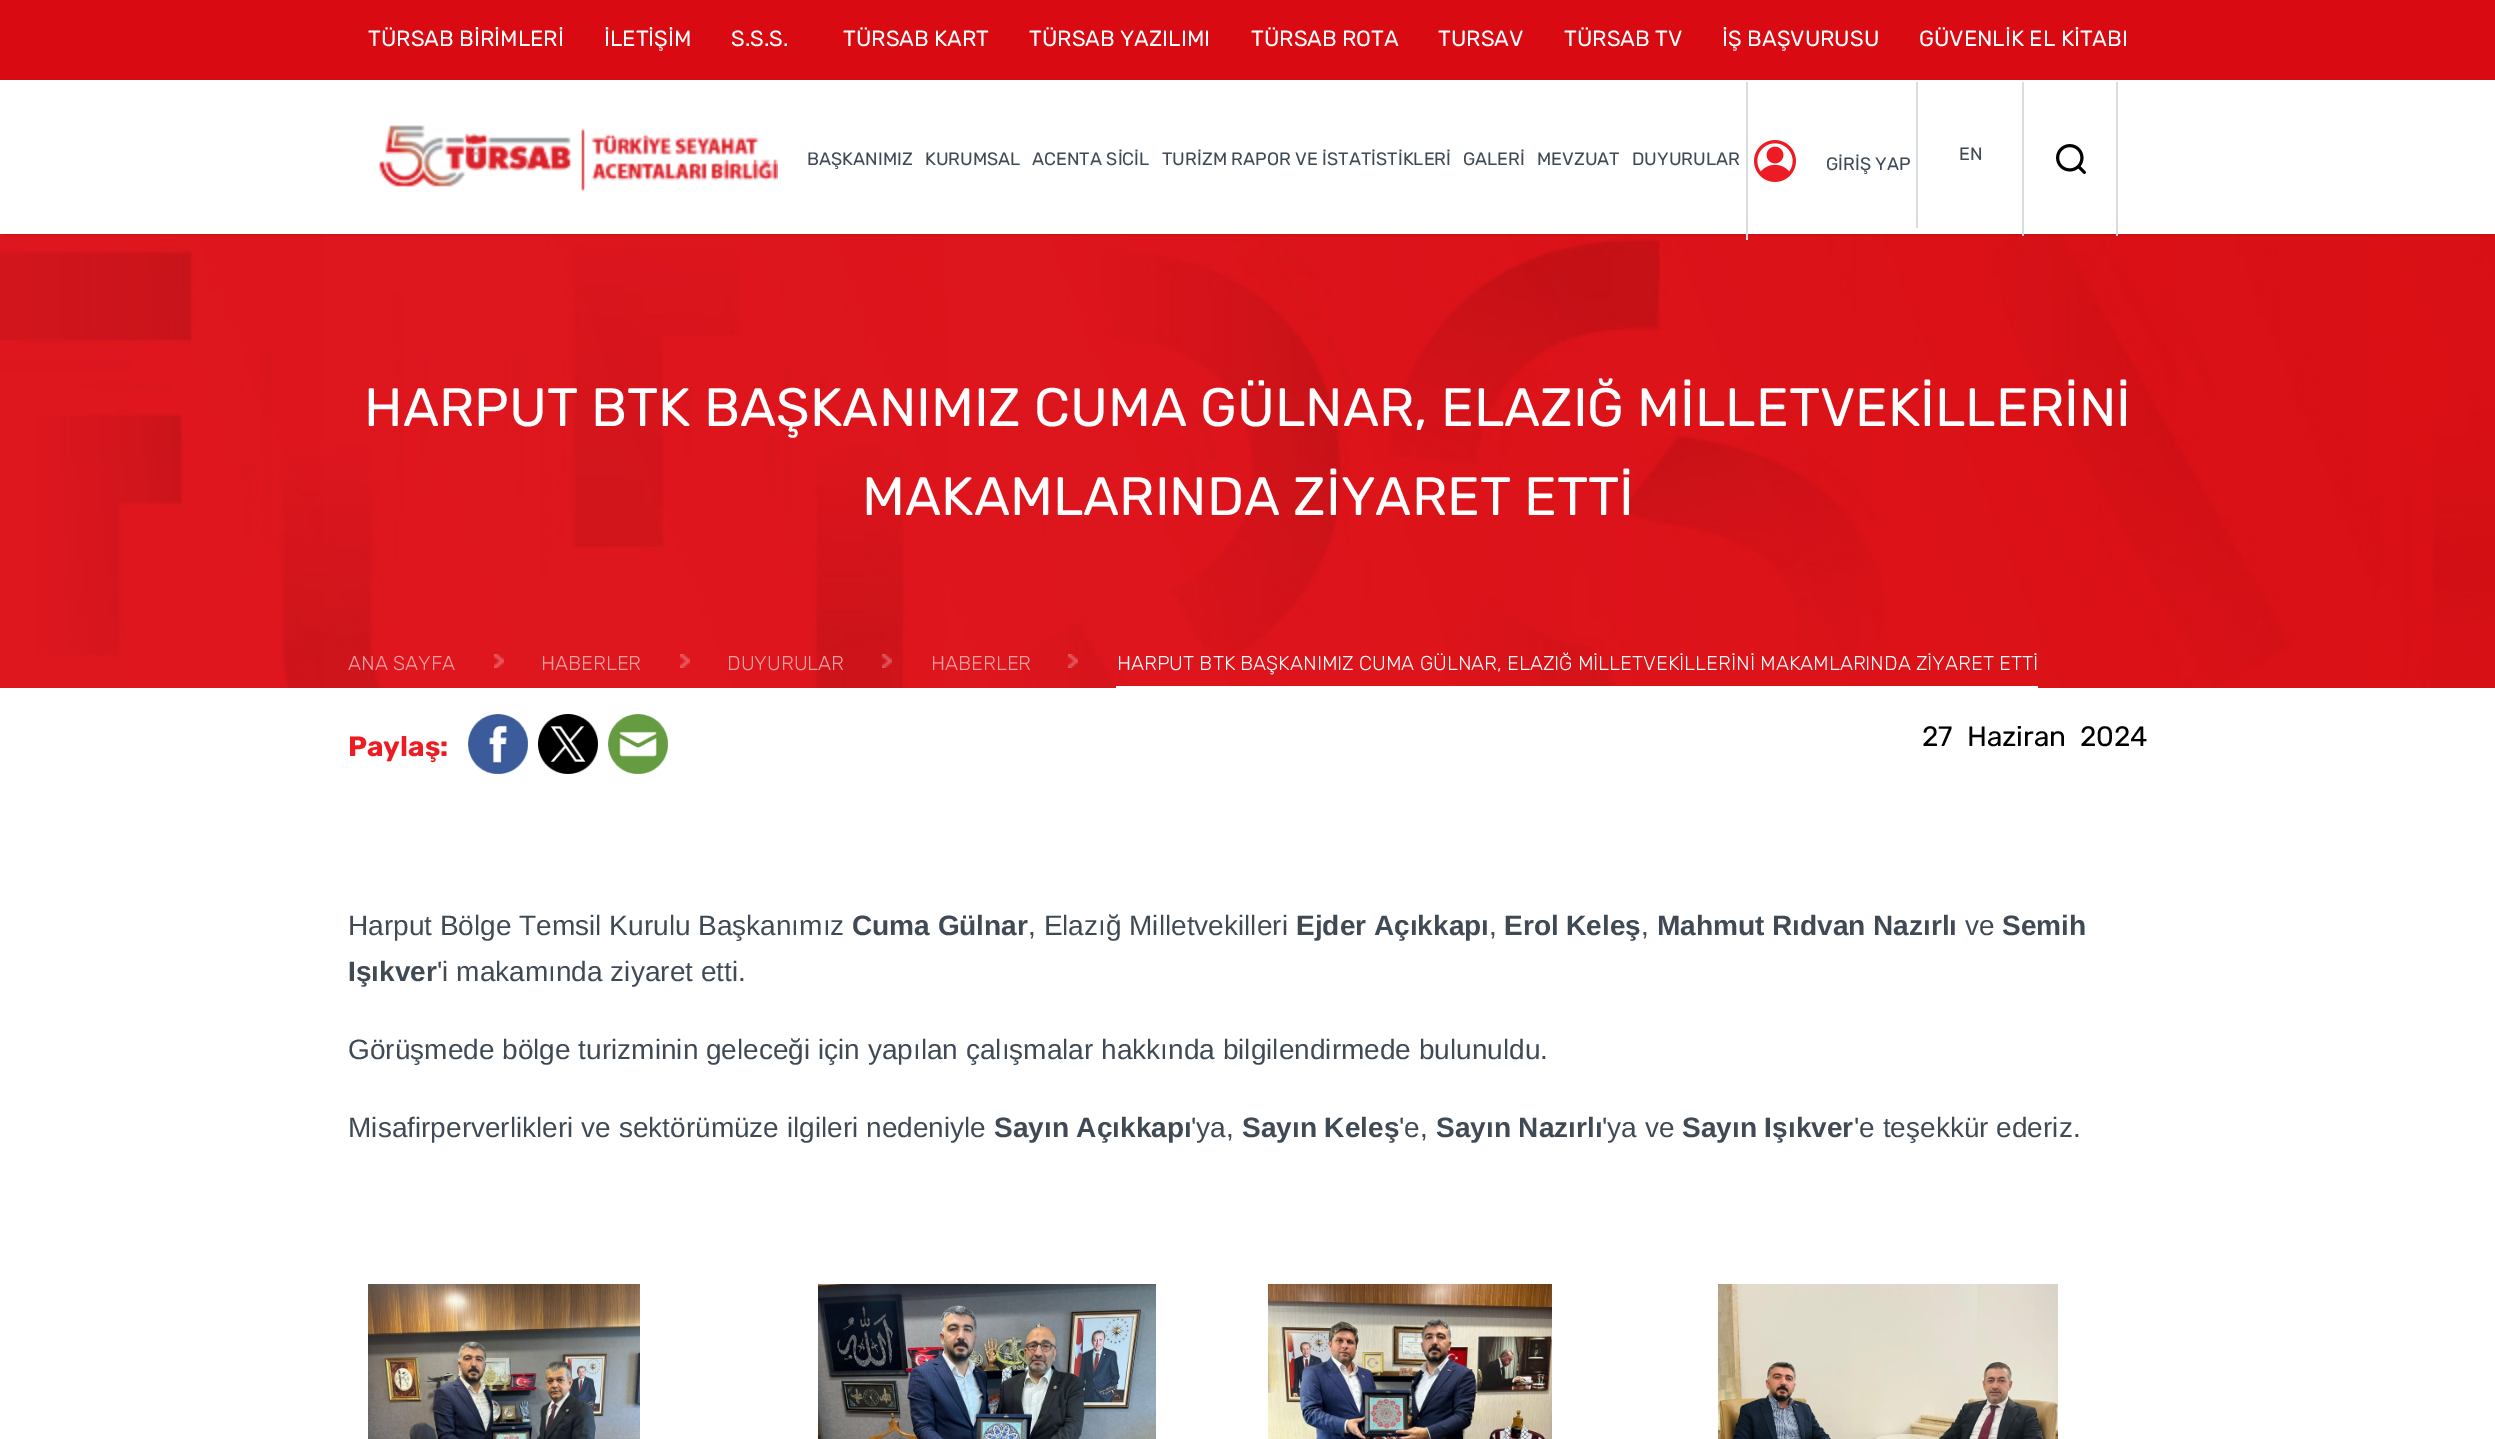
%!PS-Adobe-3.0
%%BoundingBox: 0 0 2495 1439
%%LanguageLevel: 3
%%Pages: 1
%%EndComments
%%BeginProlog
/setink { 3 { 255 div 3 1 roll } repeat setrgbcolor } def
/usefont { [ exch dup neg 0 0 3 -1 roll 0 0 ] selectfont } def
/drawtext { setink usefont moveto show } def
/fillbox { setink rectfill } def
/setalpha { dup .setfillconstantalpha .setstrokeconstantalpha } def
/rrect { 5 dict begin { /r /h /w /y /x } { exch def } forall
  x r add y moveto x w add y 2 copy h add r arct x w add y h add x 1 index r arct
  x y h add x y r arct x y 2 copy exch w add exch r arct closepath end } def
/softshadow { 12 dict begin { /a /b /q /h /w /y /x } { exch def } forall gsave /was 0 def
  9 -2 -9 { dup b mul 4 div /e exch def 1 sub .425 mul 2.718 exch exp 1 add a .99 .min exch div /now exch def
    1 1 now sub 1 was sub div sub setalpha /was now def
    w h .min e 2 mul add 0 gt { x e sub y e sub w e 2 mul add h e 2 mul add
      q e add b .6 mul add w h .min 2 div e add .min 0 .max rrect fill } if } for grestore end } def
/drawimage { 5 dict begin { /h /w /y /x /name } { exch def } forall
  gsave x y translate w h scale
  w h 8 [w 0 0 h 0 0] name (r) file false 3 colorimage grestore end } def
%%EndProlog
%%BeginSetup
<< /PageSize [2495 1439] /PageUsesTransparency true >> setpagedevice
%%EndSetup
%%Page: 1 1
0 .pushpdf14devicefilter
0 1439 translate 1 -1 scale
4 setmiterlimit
0 0 2495 1439 255 255 255 fillbox
0 0 2495 80 217 10 18 fillbox
(TÜRSAB BİRİMLERİ) 368 46 /Rubik-Regular 22 255 255 255 drawtext
(İLETİŞİM) 604 46 /Rubik-Regular 22 255 255 255 drawtext
(S.S.S.) 731 46 /Rubik-Regular 22 255 255 255 drawtext
(TÜRSAB KART) 843 46 /Rubik-Regular 22 255 255 255 drawtext
(TÜRSAB YAZILIMI) 1029 46 /Rubik-Regular 22 255 255 255 drawtext
(TÜRSAB ROTA) 1251 46 /Rubik-Regular 22 255 255 255 drawtext
(TURSAV) 1438 46 /Rubik-Regular 22 255 255 255 drawtext
(TÜRSAB TV) 1564 46 /Rubik-Regular 22 255 255 255 drawtext
(İŞ BAŞVURUSU) 1722 46 /Rubik-Regular 22 255 255 255 drawtext
(GÜVENLİK EL KİTABI) 1919 46 /Rubik-Regular 22 255 255 255 drawtext
(assets/img4.rgb) 0 234 2495 454 drawimage
gsave
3 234 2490 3 rectclip
0 0 0 setink
4 90 2488 144 0 2 0.2 softshadow
grestore
(assets/img1.rgb) 379 125 399 66 drawimage
(BAŞKANIMIZ) 807 165 /Rubik-Regular 18 64 74 85 drawtext
(KURUMSAL) 925 165 /Rubik-Regular 18 64 74 85 drawtext
(ACENTA SİCİL) 1032 165 /Rubik-Regular 18 64 74 85 drawtext
(TURİZM RAPOR VE İSTATİSTİKLERİ) 1162 165 /Rubik-Regular 18 64 74 85 drawtext
(GALERİ) 1463 165 /Rubik-Regular 18 64 74 85 drawtext
(MEVZUAT) 1537 165 /Rubik-Regular 18 64 74 85 drawtext
(DUYURULAR) 1632 165 /Rubik-Regular 18 64 74 85 drawtext
1746 82 2 158 216 221 226 fillbox
(assets/img2.rgb) 1754 140 42 42 drawimage
(GİRİŞ YAP) 1826 170 /Rubik-Regular 18 64 74 85 drawtext
1916 82 2 146 216 221 226 fillbox
(EN) 1959 160 /Rubik-Regular 18 64 74 85 drawtext
2116 82 2 154 216 221 226 fillbox
2022 82 2 154 216 221 226 fillbox
(assets/img3.rgb) 2056 144 30 30 drawimage
(HARPUT BTK BAŞKANIMIZ CUMA GÜLNAR, ELAZIĞ MİLLETVEKİLLERİNİ) 364 426 /Rubik-Regular 54 255 255 255 drawtext
(MAKAMLARINDA ZİYARET ETTİ) 862 515 /Rubik-Regular 54 255 255 255 drawtext
(ANA SAYFA) 348 670 /Rubik-Light 20 240 162 165 drawtext
(assets/img5.rgb) 494 654 10 14 drawimage
(HABERLER) 541 670 /Rubik-Light 20 240 162 165 drawtext
(assets/img5.rgb) 680 654 10 14 drawimage
(DUYURULAR) 727 670 /Rubik-Light 20 240 162 165 drawtext
(assets/img6.rgb) 882 654 10 14 drawimage
(HABERLER) 931 670 /Rubik-Light 20 240 162 165 drawtext
(assets/img7.rgb) 1068 654 10 14 drawimage
(HARPUT BTK BAŞKANIMIZ CUMA GÜLNAR, ELAZIĞ MİLLETVEKİLLERİNİ MAKAMLARINDA ZİYARET ETTİ) 1117 670 /Rubik-Light 20 255 255 255 drawtext
1116 686 922 2 255 255 255 fillbox
(Paylaş:) 348 756 /Rubik-Bold 28 237 28 36 drawtext
(assets/img8.rgb) 468 714 60 60 drawimage
(assets/img9.rgb) 538 714 60 60 drawimage
(assets/img10.rgb) 608 714 60 60 drawimage
(27  Haziran  2024) 1922 746 /Rubik-Regular 28 0 0 0 drawtext
(Harput Bölge Temsil Kurulu Başkanımız) 348 935 /LiberationSans-Regular 28 64 74 85 drawtext
(Cuma Gülnar) 852 935 /LiberationSans-Bold 28 64 74 85 drawtext
(, Elazığ Milletvekilleri) 1028 935 /LiberationSans-Regular 28 64 74 85 drawtext
(Ejder Açıkkapı) 1296 935 /LiberationSans-Bold 28 64 74 85 drawtext
(,) 1489 935 /LiberationSans-Regular 28 64 74 85 drawtext
(Erol Keleş) 1504 935 /LiberationSans-Bold 28 64 74 85 drawtext
(,) 1641 935 /LiberationSans-Regular 28 64 74 85 drawtext
(Mahmut Rıdvan Nazırlı) 1657 935 /LiberationSans-Bold 28 64 74 85 drawtext
(ve) 1965 935 /LiberationSans-Regular 28 64 74 85 drawtext
(Semih) 2002 935 /LiberationSans-Bold 28 64 74 85 drawtext
(Işıkver) 348 981 /LiberationSans-Bold 28 64 74 85 drawtext
('i makamında ziyaret etti.) 437 981 /LiberationSans-Regular 28 64 74 85 drawtext
(Görüşmede bölge turizminin geleceği için yapılan çalışmalar hakkında bilgilendirmede bulunuldu.) 348 1059 /LiberationSans-Regular 28 64 74 85 drawtext
(Misafirperverlikleri ve sektörümüze ilgileri nedeniyle) 348 1137 /LiberationSans-Regular 28 64 74 85 drawtext
(Sayın Açıkkapı) 994 1137 /LiberationSans-Bold 28 64 74 85 drawtext
('ya,) 1191 1137 /LiberationSans-Regular 28 64 74 85 drawtext
(Sayın Keleş) 1242 1137 /LiberationSans-Bold 28 64 74 85 drawtext
('e,) 1399 1137 /LiberationSans-Regular 28 64 74 85 drawtext
(Sayın Nazırlı) 1436 1137 /LiberationSans-Bold 28 64 74 85 drawtext
('ya ve) 1602 1137 /LiberationSans-Regular 28 64 74 85 drawtext
(Sayın Işıkver) 1682 1137 /LiberationSans-Bold 28 64 74 85 drawtext
('e teşekkür ederiz.) 1854 1137 /LiberationSans-Regular 28 64 74 85 drawtext
(assets/img11.rgb) 368 1284 272 155 drawimage
(assets/img12.rgb) 818 1284 338 155 drawimage
(assets/img13.rgb) 1268 1284 284 155 drawimage
(assets/img14.rgb) 1718 1284 340 155 drawimage
.poppdf14devicefilter showpage
%%EOF
